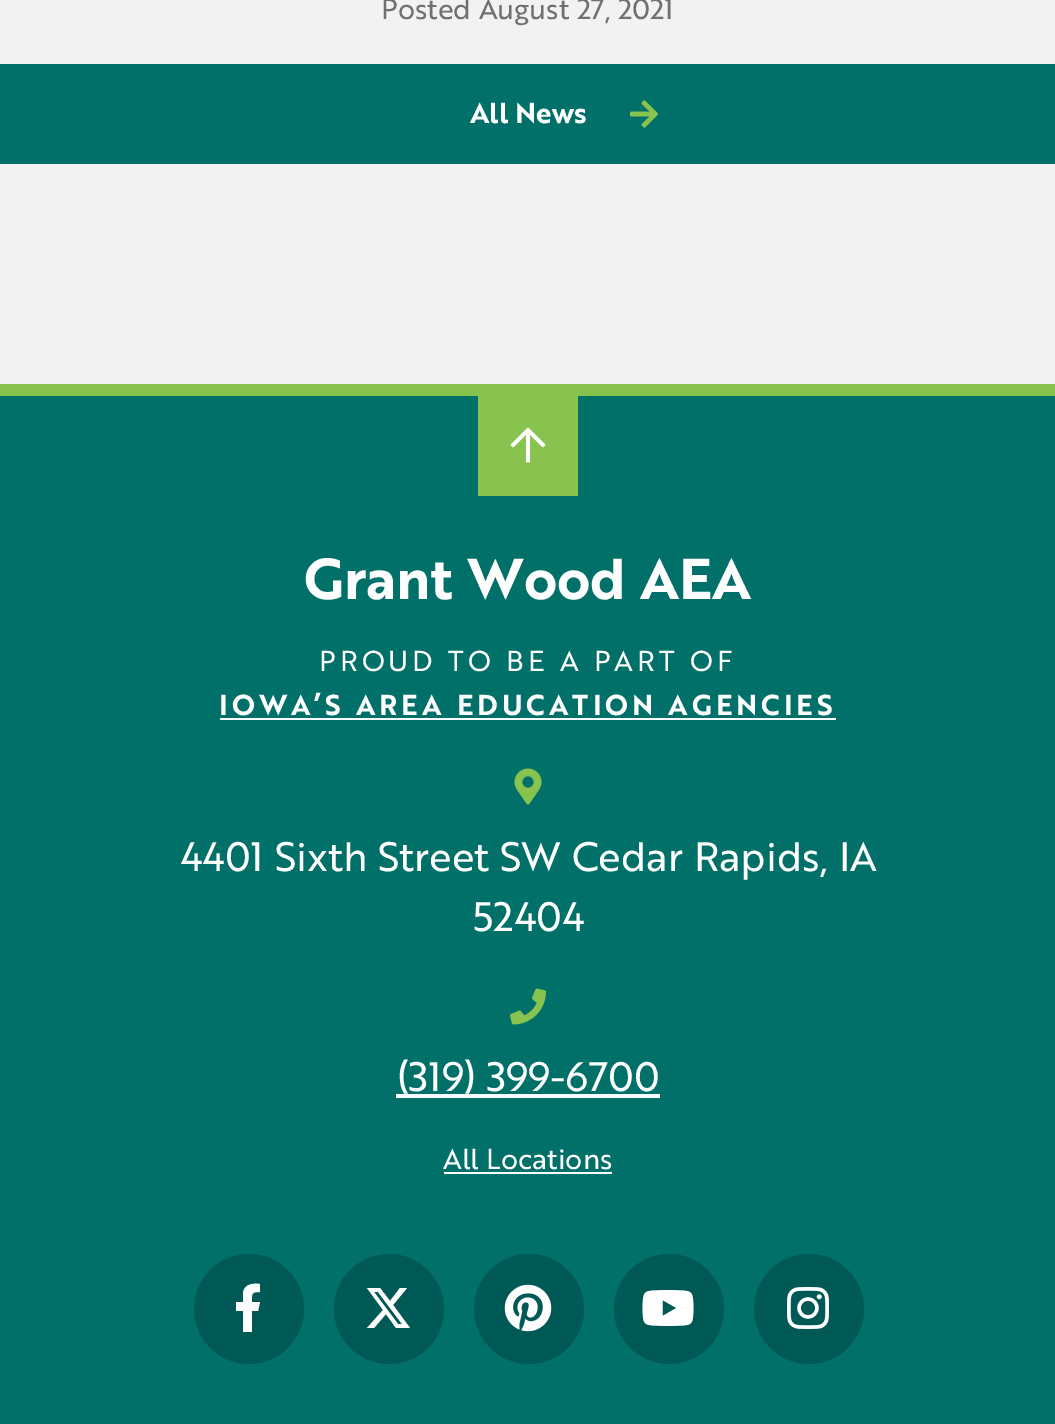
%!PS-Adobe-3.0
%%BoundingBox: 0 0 1055 1424
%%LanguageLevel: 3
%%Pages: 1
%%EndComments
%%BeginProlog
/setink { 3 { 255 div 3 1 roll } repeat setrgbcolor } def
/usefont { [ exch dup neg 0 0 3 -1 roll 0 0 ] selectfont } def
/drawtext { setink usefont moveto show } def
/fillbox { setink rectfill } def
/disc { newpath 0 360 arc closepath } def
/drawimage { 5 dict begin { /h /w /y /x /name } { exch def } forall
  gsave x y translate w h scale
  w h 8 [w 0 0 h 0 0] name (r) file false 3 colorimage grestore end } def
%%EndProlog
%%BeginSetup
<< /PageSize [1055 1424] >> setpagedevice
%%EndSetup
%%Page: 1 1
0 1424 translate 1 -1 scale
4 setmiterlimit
0 0 1055 1424 242 242 242 fillbox
(Posted August 27, 2021) 381 19 /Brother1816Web-Regular 28 112 112 112 drawtext
0 64 1055 100 0 112 105 fillbox
(All News) 470 123 /Brother1816Web-Bold 28 255 255 255 drawtext
(assets/img1.rgb) 630 100 28 28 drawimage
0 396 1055 1028 0 112 105 fillbox
0 384 1055 12 137 195 79 fillbox
478 396 100 100 137 195 79 fillbox
(assets/img2.rgb) 510 427 36 36 drawimage
(Grant Wood AEA) 304 599 /Brother1816Web-Bold 56 255 255 255 drawtext
/Brother1816Web-Regular 28 usefont
319 671 moveto 4 0 (PROUD TO BE A PART OF) ashow
/Brother1816Web-Bold 28 usefont
219 715 moveto 4 0 (IOWA’S AREA EDUCATION AGENCIES) ashow
220 718 616 2 255 255 255 fillbox
(assets/img3.rgb) 514 768 28 37 drawimage
(4401 Sixth Street SW Cedar Rapids, IA) 180 871 /Brother1816Web-Regular 40 255 255 255 drawtext
(52404) 473 931 /Brother1816Web-Regular 40 255 255 255 drawtext
(assets/img4.rgb) 510 988 36 37 drawimage
(\(319\) 399-6700) 397 1091 /Brother1816Web-Regular 40 255 255 255 drawtext
396 1094 264 4 255 255 255 fillbox
(All Locations) 443 1169 /Brother1816Web-Regular 28 255 255 255 drawtext
444 1172 168 2 255 255 255 fillbox
0 89 84 setink
249 1309 55 disc fill
255 255 255 setink
243 1332 moveto 243 1311 lineto 236 1311 lineto 236 1302 lineto 243 1302 lineto 243 1293 lineto 244 1284 253 1283 260 1284 curveto 260 1292 lineto 251 1292 252 1293 252 1302 curveto 260 1302 lineto 258 1311 lineto 252 1311 lineto 252 1332 lineto closepath fill
0 89 84 setink
389 1309 55 disc fill
255 255 255 setink
400 1288 moveto 407 1288 lineto 393 1305 lineto 410 1328 lineto 396 1328 lineto 386 1314 lineto 374 1328 lineto 367 1328 lineto 383 1310 lineto 367 1288 lineto 380 1288 lineto 390 1301 lineto closepath 398 1324 moveto 402 1324 lineto 378 1292 lineto 374 1292 lineto closepath fill
0 89 84 setink
529 1309 55 disc fill
(assets/img5.rgb) 504 1284 48 48 drawimage
669 1309 55 disc fill
(assets/img6.rgb) 642 1290 52 36 drawimage
809 1309 55 disc fill
(assets/img7.rgb) 787 1287 42 42 drawimage
showpage
%%EOF
